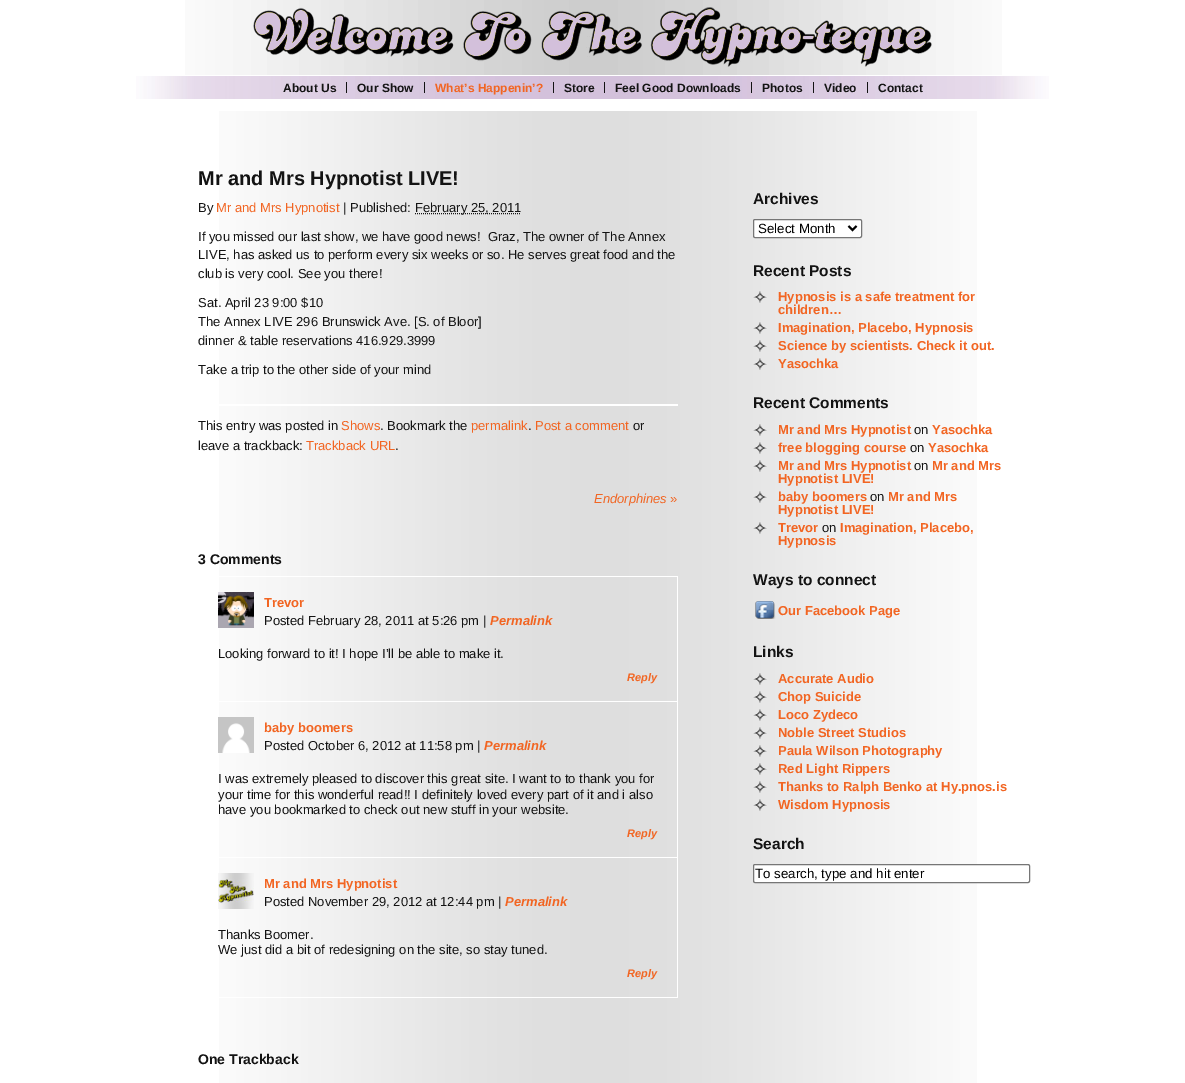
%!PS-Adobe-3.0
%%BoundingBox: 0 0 1185 1083
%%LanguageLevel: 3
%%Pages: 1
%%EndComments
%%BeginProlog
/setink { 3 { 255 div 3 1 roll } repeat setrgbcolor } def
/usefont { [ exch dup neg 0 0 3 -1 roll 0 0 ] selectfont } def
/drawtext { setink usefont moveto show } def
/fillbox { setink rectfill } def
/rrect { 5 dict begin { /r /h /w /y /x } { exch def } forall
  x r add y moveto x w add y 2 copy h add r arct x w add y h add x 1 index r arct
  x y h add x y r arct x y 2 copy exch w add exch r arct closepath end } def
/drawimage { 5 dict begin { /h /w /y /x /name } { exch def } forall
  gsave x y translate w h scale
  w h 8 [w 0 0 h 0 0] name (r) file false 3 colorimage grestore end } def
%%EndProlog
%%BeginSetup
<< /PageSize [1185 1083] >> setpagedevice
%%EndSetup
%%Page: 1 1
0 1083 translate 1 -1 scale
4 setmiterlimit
0 0 1185 1083 255 255 255 fillbox
(assets/img1.rgb) 185 0 817 75 drawimage
(assets/img2.rgb) 136 76 913 23 drawimage
346 82 1 11 19 19 19 fillbox
(About Us) 283 92 /LiberationSans-Bold 12 19 19 19 drawtext
424 82 1 11 19 19 19 fillbox
(Our Show) 357 92 /LiberationSans-Bold 12 19 19 19 drawtext
553 82 1 11 19 19 19 fillbox
(What’s Happenin’?) 435 92 /LiberationSans-Bold 12 242 101 34 drawtext
604 82 1 11 19 19 19 fillbox
(Store) 564 92 /LiberationSans-Bold 12 19 19 19 drawtext
751 82 1 11 19 19 19 fillbox
(Feel Good Downloads) 615 92 /LiberationSans-Bold 12 19 19 19 drawtext
813 82 1 11 19 19 19 fillbox
(Photos) 762 92 /LiberationSans-Bold 12 19 19 19 drawtext
867 82 1 11 19 19 19 fillbox
(Video) 824 92 /LiberationSans-Bold 12 19 19 19 drawtext
(Contact) 878 92 /LiberationSans-Bold 12 19 19 19 drawtext
(assets/img3.rgb) 219 111 758 972 drawimage
(Mr and Mrs Hypnotist LIVE!) 198 185 /LiberationSans-Bold 20 19 19 19 drawtext
(By) 198 212 /LiberationSans-Regular 13 19 19 19 drawtext
(Mr and Mrs Hypnotist) 216 212 /LiberationSans-Regular 13 242 101 34 drawtext
(| Published:) 343 212 /LiberationSans-Regular 13 19 19 19 drawtext
[1 1] 0 setdash
415 213.5 moveto 521 213.5 lineto stroke
(February 25, 2011) 415 212 /LiberationSans-Regular 13 19 19 19 drawtext
(If you missed our last show, we have good news!  Graz, The owner of The Annex) 198 241 /LiberationSans-Regular 13 19 19 19 drawtext
(LIVE, has asked us to perform every six weeks or so. He serves great food and the) 198 259 /LiberationSans-Regular 13 19 19 19 drawtext
(club is very cool. See you there!) 198 278 /LiberationSans-Regular 13 19 19 19 drawtext
(Sat. April 23 9:00 $10) 198 307 /LiberationSans-Regular 13 19 19 19 drawtext
(The Annex LIVE 296 Brunswick Ave. [S. of Bloor]) 198 326 /LiberationSans-Regular 13 19 19 19 drawtext
(dinner & table reservations 416.929.3999) 198 345 /LiberationSans-Regular 13 19 19 19 drawtext
(Take a trip to the other side of your mind) 198 374 /LiberationSans-Regular 13 19 19 19 drawtext
219 404 459 2 255 255 255 fillbox
(This entry was posted in) 198 430 /LiberationSans-Regular 13 19 19 19 drawtext
(Shows) 341 430 /LiberationSans-Regular 13 242 101 34 drawtext
(. Bookmark the) 380 430 /LiberationSans-Regular 13 19 19 19 drawtext
(permalink) 471 430 /LiberationSans-Regular 13 242 101 34 drawtext
(.) 528 430 /LiberationSans-Regular 13 19 19 19 drawtext
(Post a comment) 535 430 /LiberationSans-Regular 13 242 101 34 drawtext
(or) 633 430 /LiberationSans-Regular 13 19 19 19 drawtext
(leave a trackback:) 198 450 /LiberationSans-Regular 13 19 19 19 drawtext
(Trackback URL) 306 450 /LiberationSans-Regular 13 242 101 34 drawtext
(.) 395 450 /LiberationSans-Regular 13 19 19 19 drawtext
(Endorphines) 594 503 /LiberationSans-Italic 13 242 101 34 drawtext
(») 670 503 /LiberationSans-Regular 13 242 101 34 drawtext
(3 Comments) 198 564 /LiberationSans-Bold 14 19 19 19 drawtext
219 576 459 1 255 255 255 fillbox
677 576 1 422 255 255 255 fillbox
219 701 458 1 255 255 255 fillbox
(assets/img4.rgb) 218 592 36 36 drawimage
(Trevor) 264 607 /LiberationSans-Bold 13 242 101 34 drawtext
(Posted February 28, 2011 at 5:26 pm |) 264 625 /LiberationSans-Regular 13 19 19 19 drawtext
(Permalink) 490 625 /LiberationSans-BoldItalic 13 242 101 34 drawtext
(Looking forward to it! I hope I’ll be able to make it.) 218 658 /LiberationSans-Regular 13 19 19 19 drawtext
(Reply) 627 681 /LiberationSans-BoldItalic 11 242 101 34 drawtext
219 857 458 1 255 255 255 fillbox
(assets/img5.rgb) 218 717 36 36 drawimage
(baby boomers) 264 732 /LiberationSans-Bold 13 242 101 34 drawtext
(Posted October 6, 2012 at 11:58 pm |) 264 750 /LiberationSans-Regular 13 19 19 19 drawtext
(Permalink) 484 750 /LiberationSans-BoldItalic 13 242 101 34 drawtext
(I was extremely pleased to discover this great site. I want to to thank you for) 218 783 /LiberationSans-Regular 13 19 19 19 drawtext
(your time for this wonderful read!! I definitely loved every part of it and i also) 218 799 /LiberationSans-Regular 13 19 19 19 drawtext
(have you bookmarked to check out new stuff in your website.) 218 814 /LiberationSans-Regular 13 19 19 19 drawtext
(Reply) 627 837 /LiberationSans-BoldItalic 11 242 101 34 drawtext
219 997 458 1 255 255 255 fillbox
(assets/img6.rgb) 218 873 36 36 drawimage
(Mr and Mrs Hypnotist) 264 888 /LiberationSans-Bold 13 242 101 34 drawtext
(Posted November 29, 2012 at 12:44 pm |) 264 906 /LiberationSans-Regular 13 19 19 19 drawtext
(Permalink) 505 906 /LiberationSans-BoldItalic 13 242 101 34 drawtext
(Thanks Boomer.) 218 939 /LiberationSans-Regular 13 19 19 19 drawtext
(We just did a bit of redesigning on the site, so stay tuned.) 218 954 /LiberationSans-Regular 13 19 19 19 drawtext
(Reply) 627 977 /LiberationSans-BoldItalic 11 242 101 34 drawtext
(One Trackback) 198 1064 /LiberationSans-Bold 14 19 19 19 drawtext
(Archives) 753 204 /LiberationSans-Bold 15.5 19 19 19 drawtext
255 255 255 setink
753.5 219.5 108 18 1.5 rrect gsave fill grestore
118 118 118 setink
[] 0 setdash
stroke
0 0 0 setink
2 setlinewidth
848.5 226 moveto 852.5 230 lineto 856.5 226 lineto stroke
(Select Month) 758 233 /LiberationSans-Regular 13.3 0 0 0 drawtext
(Recent Posts) 753 276 /LiberationSans-Bold 15.5 19 19 19 drawtext
(assets/img7.rgb) 753 291 14 12 drawimage
(Hypnosis is a safe treatment for) 778 301 /LiberationSans-Bold 13 242 101 34 drawtext
(children…) 778 314 /LiberationSans-Bold 13 242 101 34 drawtext
(assets/img7.rgb) 753 322 14 12 drawimage
(Imagination, Placebo, Hypnosis) 778 332 /LiberationSans-Bold 13 242 101 34 drawtext
(assets/img7.rgb) 753 340 14 12 drawimage
(Science by scientists. Check it out.) 778 350 /LiberationSans-Bold 13 242 101 34 drawtext
(assets/img7.rgb) 753 358 14 12 drawimage
(Yasochka) 778 368 /LiberationSans-Bold 13 242 101 34 drawtext
(Recent Comments) 753 408 /LiberationSans-Bold 15.5 19 19 19 drawtext
(assets/img7.rgb) 753 424 14 12 drawimage
(Mr and Mrs Hypnotist) 778 434 /LiberationSans-Bold 13 242 101 34 drawtext
(on) 914 434 /LiberationSans-Regular 13 19 19 19 drawtext
(Yasochka) 932 434 /LiberationSans-Bold 13 242 101 34 drawtext
(assets/img7.rgb) 753 442 14 12 drawimage
(free blogging course) 778 452 /LiberationSans-Bold 13 242 101 34 drawtext
(on) 910 452 /LiberationSans-Regular 13 19 19 19 drawtext
(Yasochka) 928 452 /LiberationSans-Bold 13 242 101 34 drawtext
(assets/img7.rgb) 753 460 14 12 drawimage
(Mr and Mrs Hypnotist) 778 470 /LiberationSans-Bold 13 242 101 34 drawtext
(on) 914 470 /LiberationSans-Regular 13 19 19 19 drawtext
(Mr and Mrs) 932 470 /LiberationSans-Bold 13 242 101 34 drawtext
(Hypnotist LIVE!) 778 483 /LiberationSans-Bold 13 242 101 34 drawtext
(assets/img7.rgb) 753 491 14 12 drawimage
(baby boomers) 778 501 /LiberationSans-Bold 13 242 101 34 drawtext
(on) 870 501 /LiberationSans-Regular 13 19 19 19 drawtext
(Mr and Mrs) 888 501 /LiberationSans-Bold 13 242 101 34 drawtext
(Hypnotist LIVE!) 778 514 /LiberationSans-Bold 13 242 101 34 drawtext
(assets/img7.rgb) 753 522 14 12 drawimage
(Trevor) 778 532 /LiberationSans-Bold 13 242 101 34 drawtext
(on) 822 532 /LiberationSans-Regular 13 19 19 19 drawtext
(Imagination, Placebo,) 840 532 /LiberationSans-Bold 13 242 101 34 drawtext
(Hypnosis) 778 545 /LiberationSans-Bold 13 242 101 34 drawtext
(Ways to connect) 753 585 /LiberationSans-Bold 15.5 19 19 19 drawtext
(assets/img8.rgb) 755 601 21 18 drawimage
(Our Facebook Page) 778 615 /LiberationSans-Bold 13 242 101 34 drawtext
(Links) 753 657 /LiberationSans-Bold 15.5 19 19 19 drawtext
(assets/img7.rgb) 753 673 14 12 drawimage
(Accurate Audio) 778 683 /LiberationSans-Bold 13 242 101 34 drawtext
(assets/img7.rgb) 753 691 14 12 drawimage
(Chop Suicide) 778 701 /LiberationSans-Bold 13 242 101 34 drawtext
(assets/img7.rgb) 753 709 14 12 drawimage
(Loco Zydeco) 778 719 /LiberationSans-Bold 13 242 101 34 drawtext
(assets/img7.rgb) 753 727 14 12 drawimage
(Noble Street Studios) 778 737 /LiberationSans-Bold 13 242 101 34 drawtext
(assets/img7.rgb) 753 745 14 12 drawimage
(Paula Wilson Photography) 778 755 /LiberationSans-Bold 13 242 101 34 drawtext
(assets/img7.rgb) 753 763 14 12 drawimage
(Red Light Rippers) 778 773 /LiberationSans-Bold 13 242 101 34 drawtext
(assets/img7.rgb) 753 781 14 12 drawimage
(Thanks to Ralph Benko at Hy.pnos.is) 778 791 /LiberationSans-Bold 13 242 101 34 drawtext
(assets/img7.rgb) 753 799 14 12 drawimage
(Wisdom Hypnosis) 778 809 /LiberationSans-Bold 13 242 101 34 drawtext
(Search) 753 849 /LiberationSans-Bold 15.5 19 19 19 drawtext
255 255 255 setink
753.5 864.5 276 18 1.5 rrect gsave fill grestore
118 118 118 setink
1 setlinewidth
stroke
(To search, type and hit enter) 755 878 /LiberationSans-Regular 13.3 0 0 0 drawtext
showpage
%%EOF
